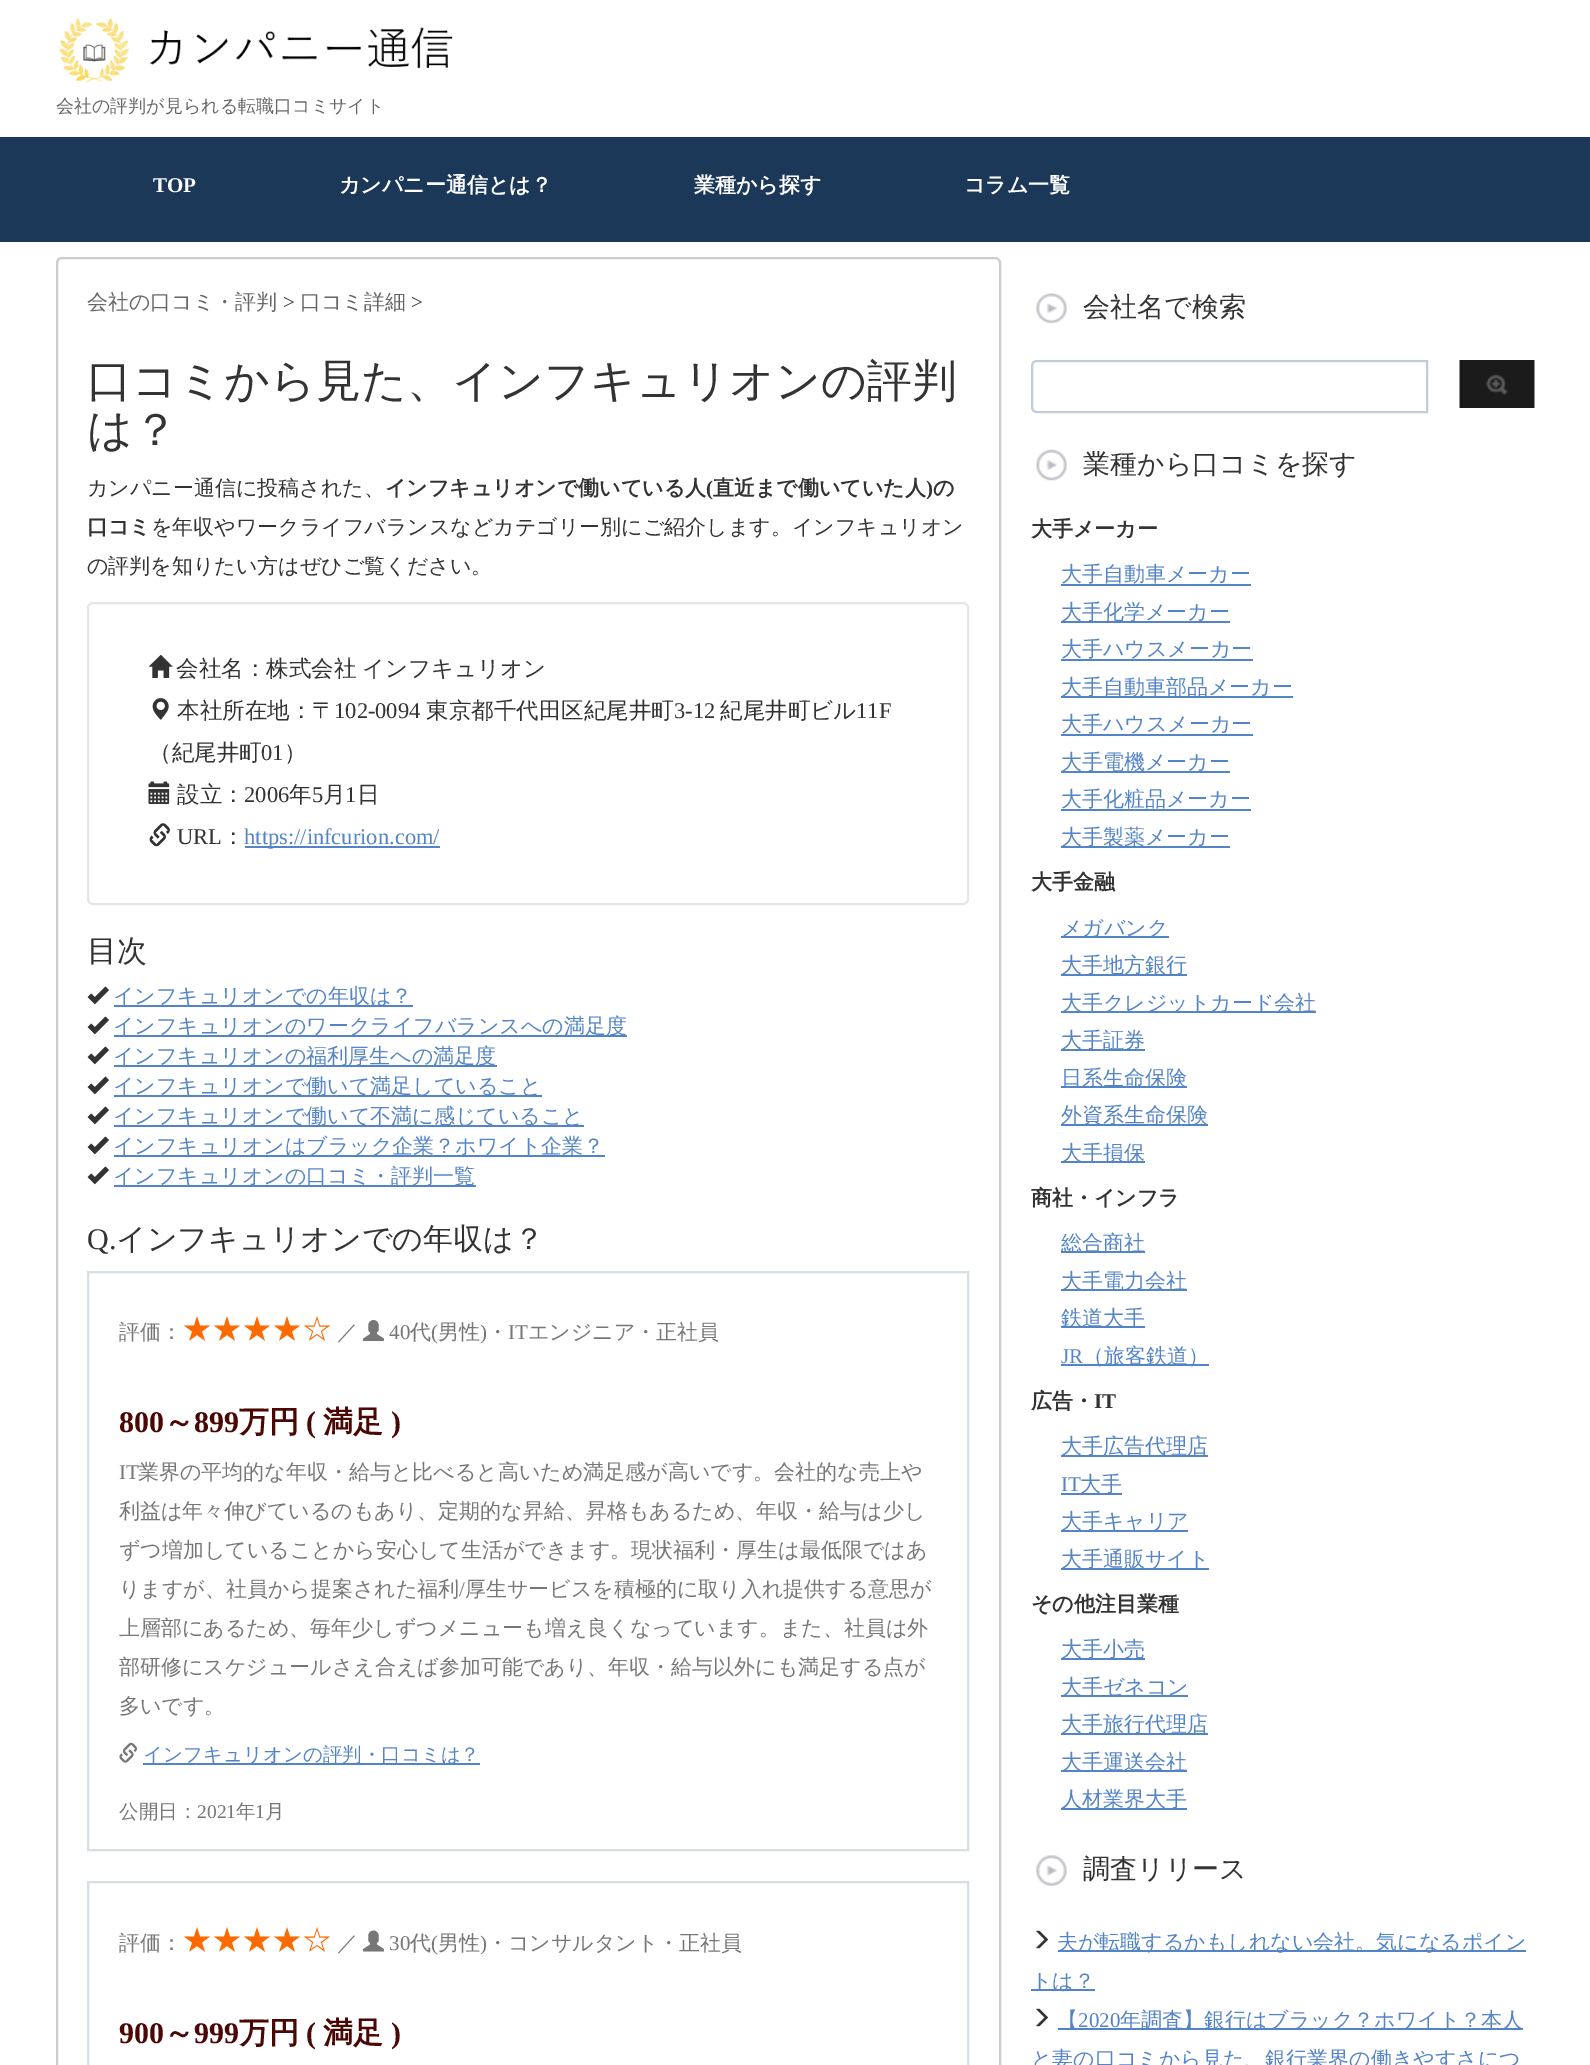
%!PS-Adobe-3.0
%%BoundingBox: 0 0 1590 2065
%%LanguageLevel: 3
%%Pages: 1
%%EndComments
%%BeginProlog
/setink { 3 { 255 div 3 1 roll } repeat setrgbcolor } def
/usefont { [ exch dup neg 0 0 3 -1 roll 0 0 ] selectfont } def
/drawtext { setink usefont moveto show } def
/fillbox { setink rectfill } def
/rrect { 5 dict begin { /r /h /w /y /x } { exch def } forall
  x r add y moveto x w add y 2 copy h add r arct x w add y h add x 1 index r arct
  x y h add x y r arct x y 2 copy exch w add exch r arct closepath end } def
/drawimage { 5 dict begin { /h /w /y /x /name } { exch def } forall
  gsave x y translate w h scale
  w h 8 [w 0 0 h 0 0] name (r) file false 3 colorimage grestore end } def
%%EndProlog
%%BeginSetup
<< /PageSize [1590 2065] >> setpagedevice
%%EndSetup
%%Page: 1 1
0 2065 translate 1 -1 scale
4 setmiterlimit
0 0 1590 2065 255 255 255 fillbox
(assets/img1.rgb) 59 18 394 64 drawimage
(会社の評判が見られる転職口コミサイト) 56 112 /WenQuanYiZenHei-Medium 18 102 102 102 drawtext
0 137 1590 105 27 56 88 fillbox
(TOP) 153 192 /LiberationSerif-Bold 21 255 255 255 drawtext
(カンパニー通信とは？) 339 192 /WenQuanYiZenHei-Bold 21 255 255 255 drawtext
(業種から探す) 694 192 /WenQuanYiZenHei-Bold 21 255 255 255 drawtext
(コラム一覧) 964 192 /WenQuanYiZenHei-Bold 21 255 255 255 drawtext
204 204 204 setink
2 setlinewidth
57 258 943 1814 5 rrect stroke
(会社の口コミ・評判) 87 309 /WenQuanYiZenHei-Medium 21 102 102 102 drawtext
(>) 283 309 /LiberationSerif-Regular 21 51 51 51 drawtext
(口コミ詳細) 300 309 /WenQuanYiZenHei-Medium 21 102 102 102 drawtext
(>) 411 309 /LiberationSerif-Regular 21 51 51 51 drawtext
(口コミから見た、インフキュリオンの評判) 87 396 /WenQuanYiZenHei-Medium 45 51 51 51 drawtext
(は？) 87 445 /WenQuanYiZenHei-Medium 45 51 51 51 drawtext
(カンパニー通信に投稿された、) 87 495 /WenQuanYiZenHei-Medium 21 51 51 51 drawtext
(インフキュリオンで働いている人) 385 495 /WenQuanYiZenHei-Bold 21 51 51 51 drawtext
(\() 706 495 /LiberationSerif-Bold 21 51 51 51 drawtext
(直近まで働いていた人) 713 495 /WenQuanYiZenHei-Bold 21 51 51 51 drawtext
(\)) 926 495 /LiberationSerif-Bold 21 51 51 51 drawtext
(の) 933 495 /WenQuanYiZenHei-Bold 21 51 51 51 drawtext
(口コミ) 87 534 /WenQuanYiZenHei-Bold 21 51 51 51 drawtext
(を年収やワークライフバランスなどカテゴリー別にご紹介します。インフキュリオン) 151 534 /WenQuanYiZenHei-Medium 21 51 51 51 drawtext
(の評判を知りたい方はぜひご覧ください。) 87 573 /WenQuanYiZenHei-Medium 21 51 51 51 drawtext
230 230 230 setink
88 603 880 301 5 rrect stroke
(assets/img2.rgb) 148 654 25 24 drawimage
/WenQuanYiZenHei-Medium 22.5 usefont
51 51 51 setink
176 676 moveto -1 0 32 (会社名：株式会社 インフキュリオン) widthshow
(assets/img3.rgb) 152 698 17 22 drawimage
(本社所在地：〒) 177 718 /WenQuanYiZenHei-Medium 22.5 51 51 51 drawtext
(102-0094) 334 718 /LiberationSerif-Regular 22.5 51 51 51 drawtext
(東京都千代田区紀尾井町) 426 718 /WenQuanYiZenHei-Medium 22.5 51 51 51 drawtext
(3-12) 674 718 /LiberationSerif-Regular 22.5 51 51 51 drawtext
(紀尾井町ビル) 720 718 /WenQuanYiZenHei-Medium 22.5 51 51 51 drawtext
(11F) 856 718 /LiberationSerif-Regular 22.5 51 51 51 drawtext
(（紀尾井町) 149 760 /WenQuanYiZenHei-Medium 22.5 51 51 51 drawtext
(01) 261 760 /LiberationSerif-Regular 22.5 51 51 51 drawtext
(）) 284 760 /WenQuanYiZenHei-Medium 22.5 51 51 51 drawtext
(assets/img4.rgb) 148 781 22 23 drawimage
(設立：) 177 802 /WenQuanYiZenHei-Medium 22.5 51 51 51 drawtext
(2006) 244 802 /LiberationSerif-Regular 22.5 51 51 51 drawtext
(年) 289 802 /WenQuanYiZenHei-Medium 22.5 51 51 51 drawtext
(5) 312 802 /LiberationSerif-Regular 22.5 51 51 51 drawtext
(月) 323 802 /WenQuanYiZenHei-Medium 22.5 51 51 51 drawtext
(1) 345 802 /LiberationSerif-Regular 22.5 51 51 51 drawtext
(日) 357 802 /WenQuanYiZenHei-Medium 22.5 51 51 51 drawtext
(assets/img5.rgb) 149 823 21 24 drawimage
(URL) 177 844 /LiberationSerif-Regular 22.5 51 51 51 drawtext
(：) 222 844 /WenQuanYiZenHei-Medium 22.5 51 51 51 drawtext
245 846 195 2 84 132 200 fillbox
(https://infcurion.com/) 244 844 /LiberationSerif-Regular 22.5 84 132 200 drawtext
(目次) 87 961 /WenQuanYiZenHei-Medium 30 51 51 51 drawtext
(assets/img6.rgb) 87 986 22 19 drawimage
114 1005 299 2 84 132 200 fillbox
(インフキュリオンでの年収は？) 113 1003 /WenQuanYiZenHei-Medium 21 84 132 200 drawtext
(assets/img6.rgb) 87 1016 22 19 drawimage
114 1035 513 2 84 132 200 fillbox
(インフキュリオンのワークライフバランスへの満足度) 113 1033 /WenQuanYiZenHei-Medium 21 84 132 200 drawtext
(assets/img6.rgb) 87 1046 22 19 drawimage
114 1065 383 2 84 132 200 fillbox
(インフキュリオンの福利厚生への満足度) 113 1063 /WenQuanYiZenHei-Medium 21 84 132 200 drawtext
(assets/img6.rgb) 87 1076 22 19 drawimage
114 1095 428 2 84 132 200 fillbox
(インフキュリオンで働いて満足していること) 113 1093 /WenQuanYiZenHei-Medium 21 84 132 200 drawtext
(assets/img6.rgb) 87 1106 22 19 drawimage
114 1125 470 2 84 132 200 fillbox
(インフキュリオンで働いて不満に感じていること) 113 1123 /WenQuanYiZenHei-Medium 21 84 132 200 drawtext
(assets/img6.rgb) 87 1136 22 19 drawimage
114 1155 491 2 84 132 200 fillbox
(インフキュリオンはブラック企業？ホワイト企業？) 113 1153 /WenQuanYiZenHei-Medium 21 84 132 200 drawtext
(assets/img6.rgb) 87 1166 22 19 drawimage
114 1185 362 2 84 132 200 fillbox
(インフキュリオンの口コミ・評判一覧) 113 1183 /WenQuanYiZenHei-Medium 21 84 132 200 drawtext
(Q.) 87 1249 /LiberationSerif-Regular 30 51 51 51 drawtext
(インフキュリオンでの年収は？) 116 1249 /WenQuanYiZenHei-Medium 30 51 51 51 drawtext
214 223 229 setink
88 1272 880 578 rectstroke
(評価：) 119 1339 /WenQuanYiZenHei-Medium 21 119 119 119 drawtext
(★★★★☆) 182 1339 /WenQuanYiZenHei-Medium 30 255 106 0 drawtext
(／) 337 1339 /WenQuanYiZenHei-Medium 21 119 119 119 drawtext
(assets/img7.rgb) 363 1320 21 21 drawimage
(40) 389 1339 /LiberationSerif-Regular 21 119 119 119 drawtext
(代) 410 1339 /WenQuanYiZenHei-Medium 21 119 119 119 drawtext
(\() 431 1339 /LiberationSerif-Regular 21 119 119 119 drawtext
(男性) 438 1339 /WenQuanYiZenHei-Medium 21 119 119 119 drawtext
(\)) 480 1339 /LiberationSerif-Regular 21 119 119 119 drawtext
(・) 487 1339 /WenQuanYiZenHei-Medium 21 119 119 119 drawtext
(IT) 508 1339 /LiberationSerif-Regular 21 119 119 119 drawtext
(エンジニア・正社員) 528 1339 /WenQuanYiZenHei-Medium 21 119 119 119 drawtext
(800) 119 1432 /LiberationSerif-Bold 30 75 7 4 drawtext
(～) 164 1432 /WenQuanYiZenHei-Bold 30 75 7 4 drawtext
(899) 194 1432 /LiberationSerif-Bold 30 75 7 4 drawtext
(万円) 239 1432 /WenQuanYiZenHei-Bold 30 75 7 4 drawtext
(\() 306 1432 /LiberationSerif-Bold 30 75 7 4 drawtext
(満足) 323 1432 /WenQuanYiZenHei-Bold 30 75 7 4 drawtext
(\)) 391 1432 /LiberationSerif-Bold 30 75 7 4 drawtext
(IT) 119 1479 /LiberationSerif-Regular 21 119 119 119 drawtext
(業界の平均的な年収・給与と比べると高いため満足感が高いです。会社的な売上や) 138 1479 /WenQuanYiZenHei-Medium 21 119 119 119 drawtext
(利益は年々伸びているのもあり、定期的な昇給、昇格もあるため、年収・給与は少し) 119 1518 /WenQuanYiZenHei-Medium 21 119 119 119 drawtext
(ずつ増加していることから安心して生活ができます。現状福利・厚生は最低限ではあ) 119 1557 /WenQuanYiZenHei-Medium 21 119 119 119 drawtext
(りますが、社員から提案された福利) 119 1596 /WenQuanYiZenHei-Medium 21 119 119 119 drawtext
(/) 459 1596 /LiberationSerif-Regular 21 119 119 119 drawtext
(厚生サービスを積極的に取り入れ提供する意思が) 465 1596 /WenQuanYiZenHei-Medium 21 119 119 119 drawtext
(上層部にあるため、毎年少しずつメニューも増え良くなっています。また、社員は外) 119 1635 /WenQuanYiZenHei-Medium 21 119 119 119 drawtext
(部研修にスケジュールさえ合えば参加可能であり、年収・給与以外にも満足する点が) 119 1674 /WenQuanYiZenHei-Medium 21 119 119 119 drawtext
(多いです。) 119 1713 /WenQuanYiZenHei-Medium 21 119 119 119 drawtext
(assets/img8.rgb) 119 1742 18 21 drawimage
143 1763 337 2 84 132 200 fillbox
(インフキュリオンの評判・口コミは？) 143 1761 /WenQuanYiZenHei-Medium 19.5 84 132 200 drawtext
(公開日：) 119 1818 /WenQuanYiZenHei-Medium 19.5 119 119 119 drawtext
(2021) 197 1818 /LiberationSerif-Regular 19.5 119 119 119 drawtext
(年) 236 1818 /WenQuanYiZenHei-Medium 19.5 119 119 119 drawtext
(1) 255 1818 /LiberationSerif-Regular 19.5 119 119 119 drawtext
(月) 265 1818 /WenQuanYiZenHei-Medium 19.5 119 119 119 drawtext
214 223 229 setink
88 1882 880 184 rectstroke
(評価：) 119 1950 /WenQuanYiZenHei-Medium 21 119 119 119 drawtext
(★★★★☆) 182 1950 /WenQuanYiZenHei-Medium 30 255 106 0 drawtext
(／) 337 1950 /WenQuanYiZenHei-Medium 21 119 119 119 drawtext
(assets/img9.rgb) 363 1930 21 22 drawimage
(30) 389 1950 /LiberationSerif-Regular 21 119 119 119 drawtext
(代) 410 1950 /WenQuanYiZenHei-Medium 21 119 119 119 drawtext
(\() 431 1950 /LiberationSerif-Regular 21 119 119 119 drawtext
(男性) 438 1950 /WenQuanYiZenHei-Medium 21 119 119 119 drawtext
(\)) 480 1950 /LiberationSerif-Regular 21 119 119 119 drawtext
(・コンサルタント・正社員) 487 1950 /WenQuanYiZenHei-Medium 21 119 119 119 drawtext
(900) 119 2043 /LiberationSerif-Bold 30 75 7 4 drawtext
(～) 164 2043 /WenQuanYiZenHei-Bold 30 75 7 4 drawtext
(999) 194 2043 /LiberationSerif-Bold 30 75 7 4 drawtext
(万円) 239 2043 /WenQuanYiZenHei-Bold 30 75 7 4 drawtext
(\() 306 2043 /LiberationSerif-Bold 30 75 7 4 drawtext
(満足) 323 2043 /WenQuanYiZenHei-Bold 30 75 7 4 drawtext
(\)) 391 2043 /LiberationSerif-Bold 30 75 7 4 drawtext
(assets/img10.rgb) 1036 293 31 31 drawimage
(会社名で検索) 1083 316 /WenQuanYiZenHei-Medium 27 51 51 51 drawtext
191 205 218 setink
1037 361 moveto 1427 361 lineto 1427 412 lineto 1037 412 lineto 1034 412 1032 410 1032 407 curveto 1032 366 lineto 1032 363 1034 361 1037 361 curveto closepath stroke
(assets/img11.rgb) 1459 360 76 48 drawimage
(assets/img12.rgb) 1036 449 31 32 drawimage
(業種から口コミを探す) 1083 473 /WenQuanYiZenHei-Medium 27 51 51 51 drawtext
(大手メーカー) 1031 536 /WenQuanYiZenHei-Bold 21 51 51 51 drawtext
(大手自動車メーカー) 1061 581 /WenQuanYiZenHei-Medium 21 84 132 200 drawtext
1061 584 190 2 84 132 200 fillbox
1061 621 169 2 84 132 200 fillbox
(大手化学メーカー) 1061 619 /WenQuanYiZenHei-Medium 21 84 132 200 drawtext
(大手ハウスメーカー) 1061 656 /WenQuanYiZenHei-Medium 21 84 132 200 drawtext
1061 659 192 2 84 132 200 fillbox
1061 696 232 2 84 132 200 fillbox
(大手自動車部品メーカー) 1061 694 /WenQuanYiZenHei-Medium 21 84 132 200 drawtext
(大手ハウスメーカー) 1061 731 /WenQuanYiZenHei-Medium 21 84 132 200 drawtext
1061 734 192 2 84 132 200 fillbox
1061 771 169 2 84 132 200 fillbox
(大手電機メーカー) 1061 769 /WenQuanYiZenHei-Medium 21 84 132 200 drawtext
(大手化粧品メーカー) 1061 806 /WenQuanYiZenHei-Medium 21 84 132 200 drawtext
1061 809 190 2 84 132 200 fillbox
1061 846 169 2 84 132 200 fillbox
(大手製薬メーカー) 1061 844 /WenQuanYiZenHei-Medium 21 84 132 200 drawtext
(大手金融) 1031 889 /WenQuanYiZenHei-Bold 21 51 51 51 drawtext
1061 936 108 2 84 132 200 fillbox
(メガバンク) 1061 935 /WenQuanYiZenHei-Medium 21 84 132 200 drawtext
1061 974 126 2 84 132 200 fillbox
(大手地方銀行) 1061 972 /WenQuanYiZenHei-Medium 21 84 132 200 drawtext
1061 1011 255 2 84 132 200 fillbox
(大手クレジットカード会社) 1061 1010 /WenQuanYiZenHei-Medium 21 84 132 200 drawtext
1061 1049 84 2 84 132 200 fillbox
(大手証券) 1061 1047 /WenQuanYiZenHei-Medium 21 84 132 200 drawtext
1061 1086 126 2 84 132 200 fillbox
(日系生命保険) 1061 1085 /WenQuanYiZenHei-Medium 21 84 132 200 drawtext
1061 1124 147 2 84 132 200 fillbox
(外資系生命保険) 1061 1122 /WenQuanYiZenHei-Medium 21 84 132 200 drawtext
1061 1161 84 2 84 132 200 fillbox
(大手損保) 1061 1160 /WenQuanYiZenHei-Medium 21 84 132 200 drawtext
(商社・インフラ) 1031 1205 /WenQuanYiZenHei-Bold 21 51 51 51 drawtext
1061 1251 84 2 84 132 200 fillbox
(総合商社) 1061 1250 /WenQuanYiZenHei-Medium 21 84 132 200 drawtext
1061 1289 126 2 84 132 200 fillbox
(大手電力会社) 1061 1288 /WenQuanYiZenHei-Medium 21 84 132 200 drawtext
1061 1326 84 2 84 132 200 fillbox
(鉄道大手) 1061 1325 /WenQuanYiZenHei-Medium 21 84 132 200 drawtext
(JR) 1061 1363 /LiberationSerif-Regular 21 84 132 200 drawtext
1061 1364 148 2 84 132 200 fillbox
(（旅客鉄道）) 1083 1363 /WenQuanYiZenHei-Medium 21 84 132 200 drawtext
(広告・) 1031 1408 /WenQuanYiZenHei-Bold 21 51 51 51 drawtext
(IT) 1094 1408 /LiberationSerif-Bold 21 51 51 51 drawtext
1061 1455 147 2 84 132 200 fillbox
(大手広告代理店) 1061 1453 /WenQuanYiZenHei-Medium 21 84 132 200 drawtext
(IT) 1061 1491 /LiberationSerif-Regular 21 84 132 200 drawtext
1061 1493 61 2 84 132 200 fillbox
(大手) 1080 1491 /WenQuanYiZenHei-Medium 21 84 132 200 drawtext
1061 1530 127 2 84 132 200 fillbox
(大手キャリア) 1061 1528 /WenQuanYiZenHei-Medium 21 84 132 200 drawtext
1061 1568 148 2 84 132 200 fillbox
(大手通販サイト) 1061 1566 /WenQuanYiZenHei-Medium 21 84 132 200 drawtext
(その他注目業種) 1031 1611 /WenQuanYiZenHei-Bold 21 51 51 51 drawtext
1061 1658 84 2 84 132 200 fillbox
(大手小売) 1061 1656 /WenQuanYiZenHei-Medium 21 84 132 200 drawtext
1061 1695 127 2 84 132 200 fillbox
(大手ゼネコン) 1061 1694 /WenQuanYiZenHei-Medium 21 84 132 200 drawtext
1061 1733 147 2 84 132 200 fillbox
(大手旅行代理店) 1061 1731 /WenQuanYiZenHei-Medium 21 84 132 200 drawtext
1061 1770 126 2 84 132 200 fillbox
(大手運送会社) 1061 1769 /WenQuanYiZenHei-Medium 21 84 132 200 drawtext
1061 1808 126 2 84 132 200 fillbox
(人材業界大手) 1061 1806 /WenQuanYiZenHei-Medium 21 84 132 200 drawtext
(assets/img13.rgb) 1036 1855 31 31 drawimage
(調査リリース) 1083 1878 /WenQuanYiZenHei-Medium 27 51 51 51 drawtext
(assets/img14.rgb) 1036 1930 12 19 drawimage
1058 1950 468 2 84 132 200 fillbox
(夫が転職するかもしれない会社。気になるポイン) 1057 1949 /WenQuanYiZenHei-Medium 21 84 132 200 drawtext
1031 1989 64 2 84 132 200 fillbox
(トは？) 1031 1988 /WenQuanYiZenHei-Medium 21 84 132 200 drawtext
(assets/img14.rgb) 1036 2008 12 19 drawimage
1058 2028 465 2 84 132 200 fillbox
(【) 1057 2027 /WenQuanYiZenHei-Medium 21 84 132 200 drawtext
(2020) 1078 2027 /LiberationSerif-Regular 21 84 132 200 drawtext
(年調査】銀行はブラック？ホワイト？本人) 1120 2027 /WenQuanYiZenHei-Medium 21 84 132 200 drawtext
(と妻の口コミから見た、銀行業界の働きやすさにつ) 1031 2066 /WenQuanYiZenHei-Medium 21 84 132 200 drawtext
showpage
%%EOF
